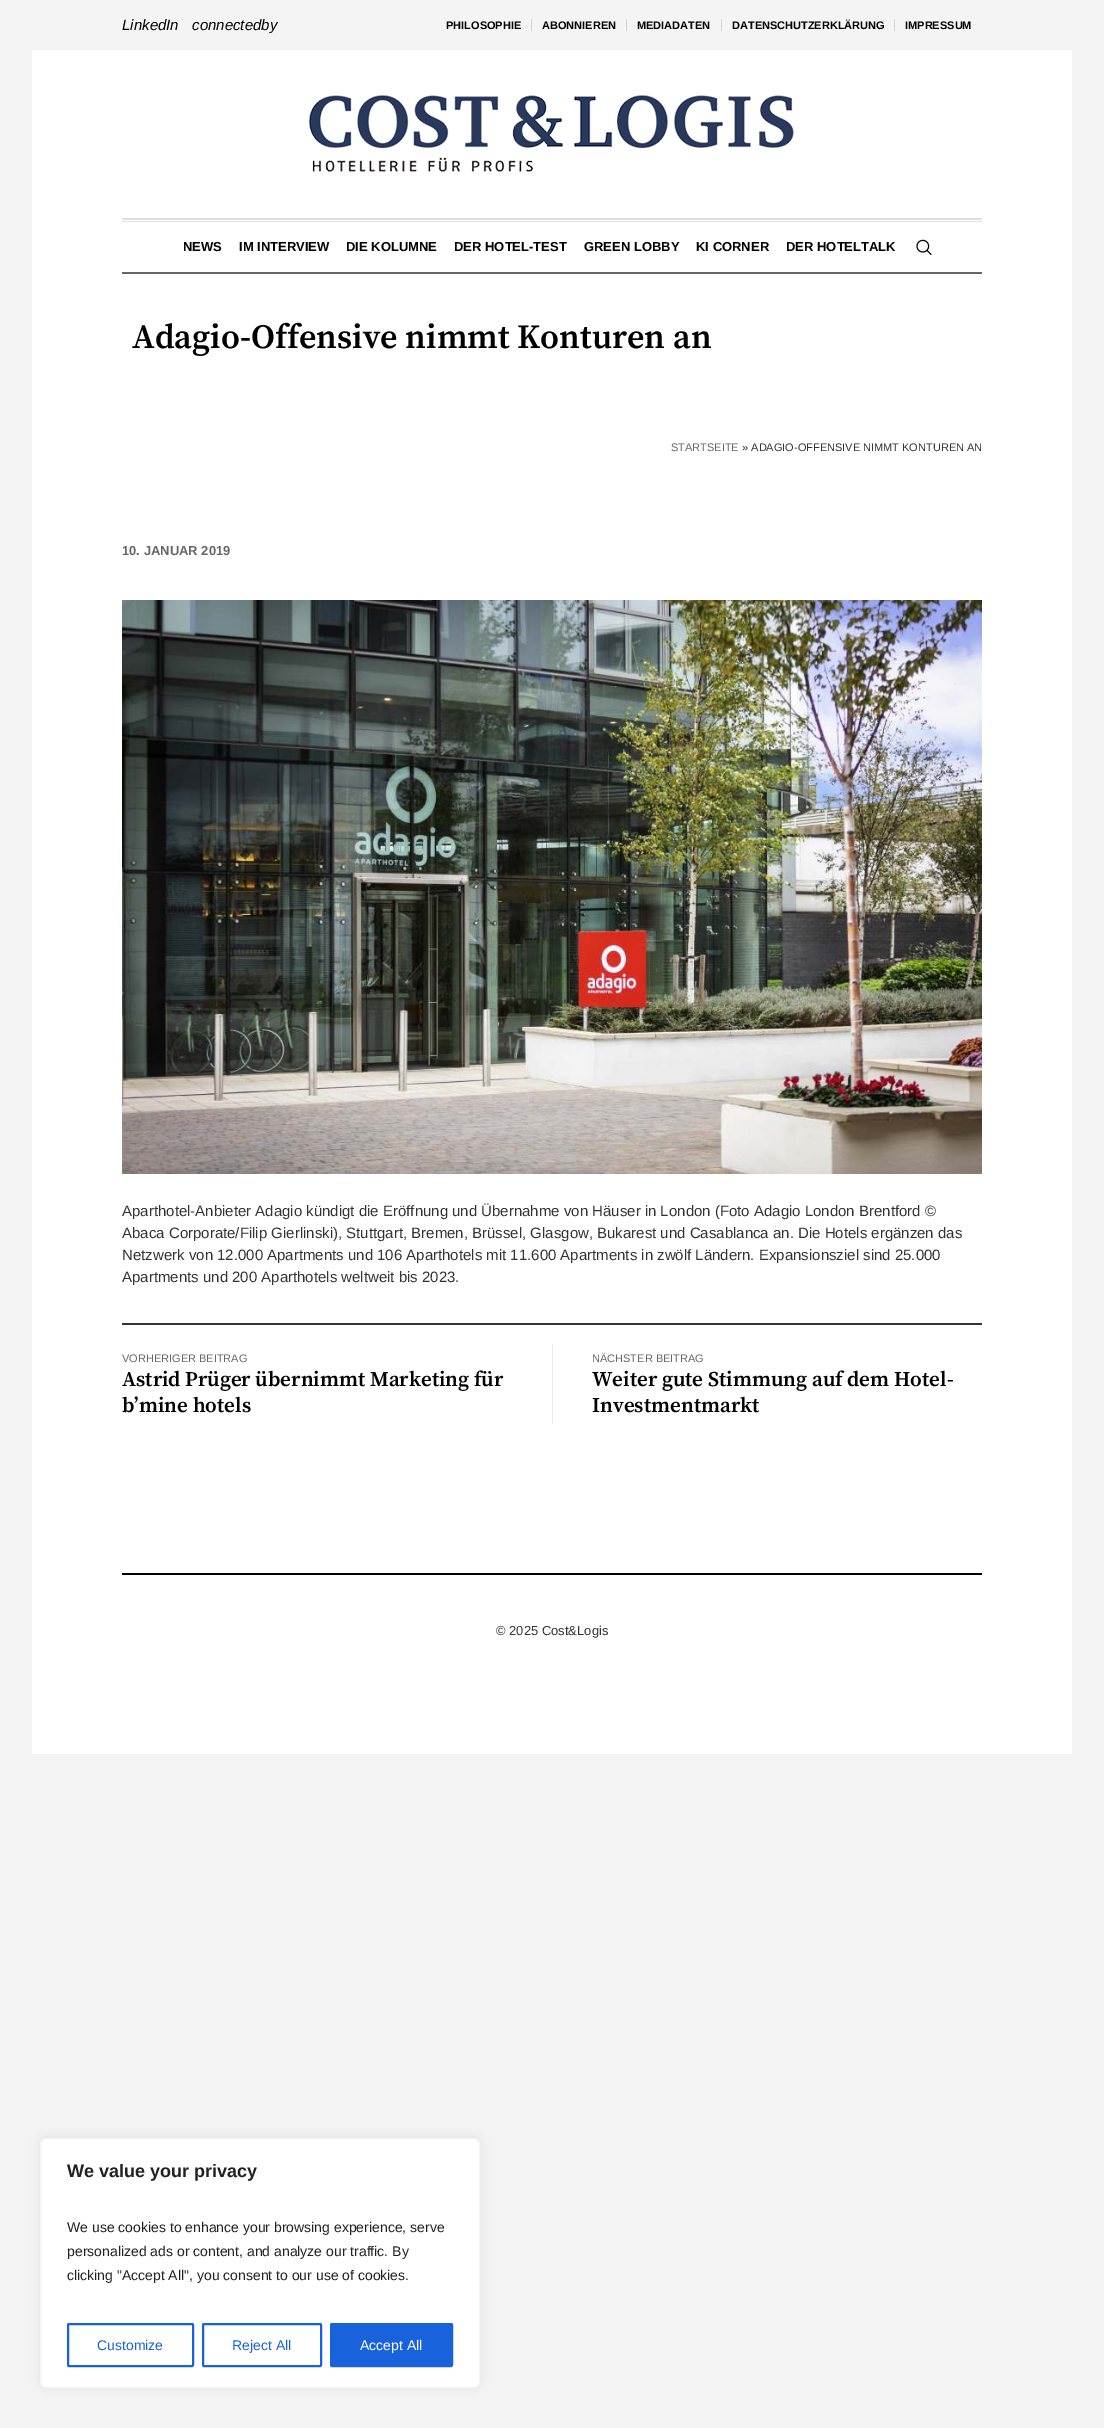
%!PS-Adobe-3.0
%%BoundingBox: 0 0 1104 2428
%%LanguageLevel: 3
%%Pages: 1
%%EndComments
%%BeginProlog
/setink { 3 { 255 div 3 1 roll } repeat setrgbcolor } def
/usefont { [ exch dup neg 0 0 3 -1 roll 0 0 ] selectfont } def
/drawtext { setink usefont moveto show } def
/fillbox { setink rectfill } def
/setalpha { dup .setfillconstantalpha .setstrokeconstantalpha } def
/rrect { 5 dict begin { /r /h /w /y /x } { exch def } forall
  x r add y moveto x w add y 2 copy h add r arct x w add y h add x 1 index r arct
  x y h add x y r arct x y 2 copy exch w add exch r arct closepath end } def
/softshadow { 12 dict begin { /a /b /q /h /w /y /x } { exch def } forall gsave /was 0 def
  9 -2 -9 { dup b mul 4 div /e exch def 1 sub .425 mul 2.718 exch exp 1 add a .99 .min exch div /now exch def
    1 1 now sub 1 was sub div sub setalpha /was now def
    w h .min e 2 mul add 0 gt { x e sub y e sub w e 2 mul add h e 2 mul add
      q e add b .6 mul add w h .min 2 div e add .min 0 .max rrect fill } if } for grestore end } def
/drawimage { 5 dict begin { /h /w /y /x /name } { exch def } forall
  gsave x y translate w h scale
  w h 8 [w 0 0 h 0 0] name (r) file false 3 colorimage grestore end } def
%%EndProlog
%%BeginSetup
<< /PageSize [1104 2428] /PageUsesTransparency true >> setpagedevice
%%EndSetup
%%Page: 1 1
0 .pushpdf14devicefilter
0 2428 translate 1 -1 scale
4 setmiterlimit
0 0 1104 2428 244 244 244 fillbox
(LinkedIn) 122 30 /LiberationSans-Italic 15 0 0 0 drawtext
(connectedby) 192 30 /LiberationSans-Italic 15 0 0 0 drawtext
(PHILOSOPHIE) 446 29 /LiberationSans-Bold 11 0 0 0 drawtext
531 19 1 12 209 209 209 fillbox
(ABONNIEREN) 542 29 /LiberationSans-Bold 11 0 0 0 drawtext
626 19 1 12 209 209 209 fillbox
(MEDIADATEN) 637 29 /LiberationSans-Bold 11 0 0 0 drawtext
721 19 1 12 209 209 209 fillbox
(DATENSCHUTZERKLÄRUNG) 732 29 /LiberationSans-Bold 11 0 0 0 drawtext
894 19 1 12 209 209 209 fillbox
(IMPRESSUM) 905 29 /LiberationSans-Bold 11 0 0 0 drawtext
32 50 1040 1704 255 255 255 fillbox
(assets/img1.rgb) 309 95 485 77 drawimage
122 221 860 1 223 223 223 fillbox
122 218 860 2 223 223 223 fillbox
122 272 860 2 102 102 102 fillbox
(NEWS) 183 251 /LiberationSans-Bold 13 0 0 0 drawtext
(IM INTERVIEW) 239 251 /LiberationSans-Bold 13 0 0 0 drawtext
(DIE KOLUMNE) 346 251 /LiberationSans-Bold 13 0 0 0 drawtext
(DER HOTEL-TEST) 454 251 /LiberationSans-Bold 13 0 0 0 drawtext
(GREEN LOBBY) 584 251 /LiberationSans-Bold 13 0 0 0 drawtext
(KI CORNER) 696 251 /LiberationSans-Bold 13 0 0 0 drawtext
(DER HOTELTALK) 786 251 /LiberationSans-Bold 13 0 0 0 drawtext
(assets/img2.rgb) 916 239 16 16 drawimage
(Adagio-Offensive nimmt Konturen an) 132 348 /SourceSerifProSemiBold-SemiBold 34 0 0 0 drawtext
(STARTSEITE) 671 451 /LiberationSans-Regular 11 102 102 102 drawtext
(» ADAGIO-OFFENSIVE NIMMT KONTUREN AN) 742 451 /LiberationSans-Regular 11 51 51 51 drawtext
(10. JANUAR 2019) 122 555 /LiberationSans-Bold 13 102 102 102 drawtext
(assets/img3.rgb) 122 600 860 574 drawimage
(Aparthotel-Anbieter Adagio kündigt die Eröffnung und Übernahme von Häuser in London \(Foto Adagio London Brentford ©) 122 1216 /LiberationSans-Regular 15 51 51 51 drawtext
(Abaca Corporate/Filip Gierlinski\), Stuttgart, Bremen, Brüssel, Glasgow, Bukarest und Casablanca an. Die Hotels ergänzen das) 122 1238 /LiberationSans-Regular 15 51 51 51 drawtext
(Netzwerk von 12.000 Apartments und 106 Aparthotels mit 11.600 Apartments in zwölf Ländern. Expansionsziel sind 25.000) 122 1260 /LiberationSans-Regular 15 51 51 51 drawtext
(Apartments und 200 Aparthotels weltweit bis 2023.) 122 1282 /LiberationSans-Regular 15 51 51 51 drawtext
122 1323 860 2 51 51 51 fillbox
(VORHERIGER BEITRAG) 122 1362 /LiberationSans-Regular 11 102 102 102 drawtext
(Astrid Prüger übernimmt Marketing für) 122 1386 /SourceSerifProSemiBold-SemiBold 21 0 0 0 drawtext
(b’mine hotels) 122 1412 /SourceSerifProSemiBold-SemiBold 21 0 0 0 drawtext
552 1344 1 80 234 234 234 fillbox
(NÄCHSTER BEITRAG) 592 1362 /LiberationSans-Regular 11 102 102 102 drawtext
(Weiter gute Stimmung auf dem Hotel-) 592 1386 /SourceSerifProSemiBold-SemiBold 21 0 0 0 drawtext
(Investmentmarkt) 592 1412 /SourceSerifProSemiBold-SemiBold 21 0 0 0 drawtext
122 1573 860 2 0 0 0 fillbox
(© 2025 Cost&Logis) 496 1635 /LiberationSans-Regular 13 51 51 51 drawtext
172 171 171 setink
40 2137 440 250 6 5 0.3 softshadow
255 255 255 setink
40.5 2138.5 439 249 5.5 rrect gsave fill grestore
244 244 244 setink
stroke
(We value your privacy) 67 2177 /LiberationSans-Bold 18 33 33 33 drawtext
(We use cookies to enhance your browsing experience, serve) 67 2232 /LiberationSans-Regular 14 33 33 33 drawtext
(personalized ads or content, and analyze our traffic. By) 67 2256 /LiberationSans-Regular 14 33 33 33 drawtext
(clicking "Accept All", you consent to our use of cookies.) 67 2280 /LiberationSans-Regular 14 33 33 33 drawtext
24 99 220 setink
2 setlinewidth
68 2324 125 42 1 rrect stroke
(Customize) 97 2350 /LiberationSans-Regular 14 24 99 220 drawtext
203 2324 118 42 1 rrect stroke
(Reject All) 232 2350 /LiberationSans-Regular 14 24 99 220 drawtext
331 2324 121 42 1 rrect gsave fill grestore
stroke
(Accept All) 360 2350 /LiberationSans-Regular 14 255 255 255 drawtext
.poppdf14devicefilter showpage
%%EOF
